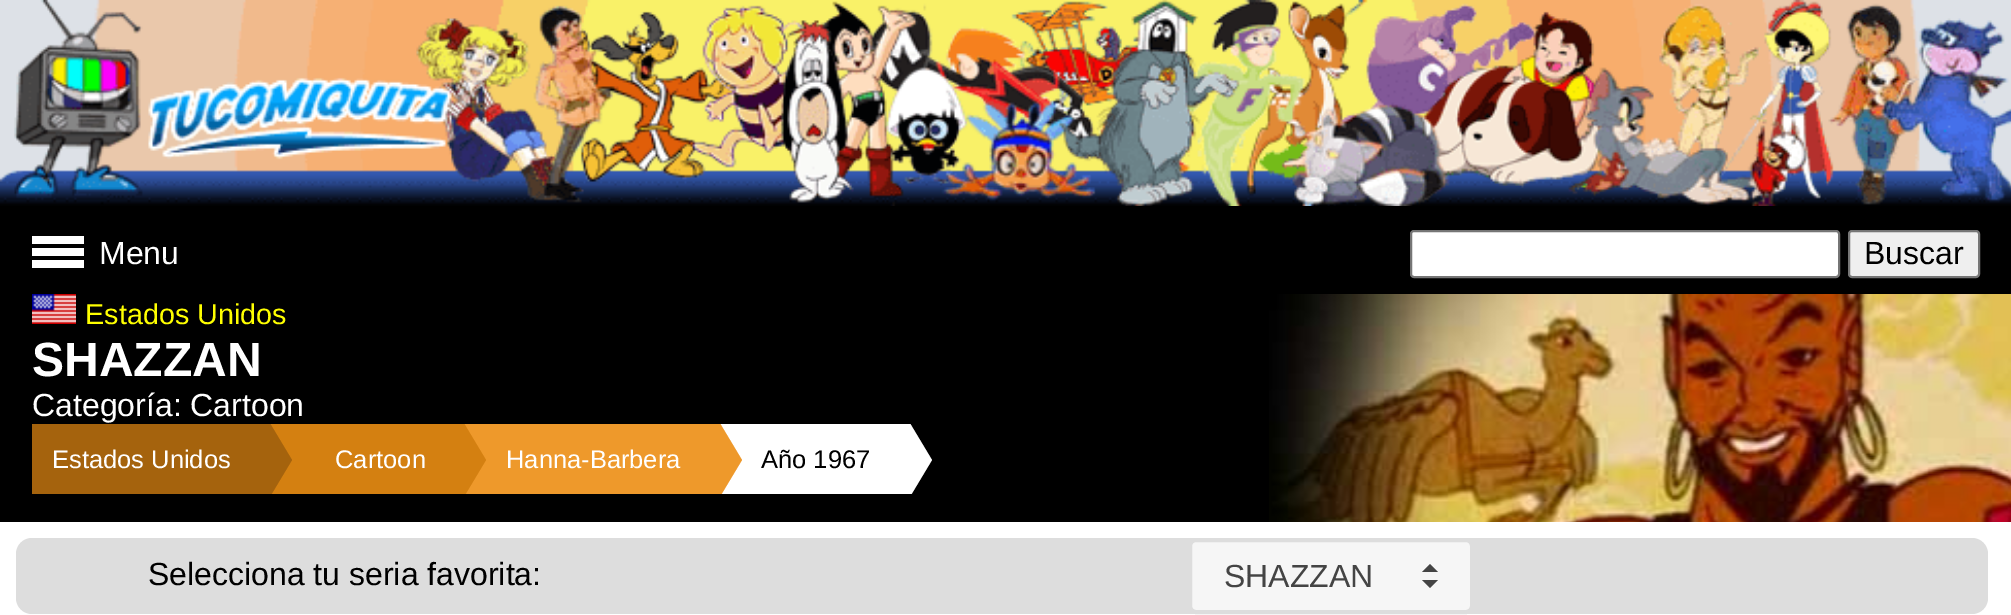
%!PS-Adobe-3.0
%%BoundingBox: 0 0 2011 615
%%LanguageLevel: 3
%%Pages: 1
%%EndComments
%%BeginProlog
/setink { 3 { 255 div 3 1 roll } repeat setrgbcolor } def
/usefont { [ exch dup neg 0 0 3 -1 roll 0 0 ] selectfont } def
/drawtext { setink usefont moveto show } def
/fillbox { setink rectfill } def
/rrect { 5 dict begin { /r /h /w /y /x } { exch def } forall
  x r add y moveto x w add y 2 copy h add r arct x w add y h add x 1 index r arct
  x y h add x y r arct x y 2 copy exch w add exch r arct closepath end } def
/drawimage { 5 dict begin { /h /w /y /x /name } { exch def } forall
  gsave x y translate w h scale
  w h 8 [w 0 0 h 0 0] name (r) file false 3 colorimage grestore end } def
%%EndProlog
%%BeginSetup
<< /PageSize [2011 615] >> setpagedevice
%%EndSetup
%%Page: 1 1
0 615 translate 1 -1 scale
4 setmiterlimit
0 0 2011 615 255 255 255 fillbox
0 206 2011 88 0 0 0 fillbox
(assets/img1.rgb) 0 0 2011 206 drawimage
32 236 52 8 255 255 255 fillbox
32 248 52 8 255 255 255 fillbox
32 260 52 8 255 255 255 fillbox
(Menu) 99 264 /LiberationSans-Regular 32 255 255 255 drawtext
1411 231 428 46 3 rrect gsave fill grestore
118 118 118 setink
2 setlinewidth
stroke
239 239 239 setink
1849 231 130 46 3 rrect gsave fill grestore
118 118 118 setink
stroke
(Buscar) 1864 264 /LiberationSans-Regular 32 0 0 0 drawtext
0 294 1269 228 0 0 0 fillbox
(assets/img2.rgb) 1269 294 742 228 drawimage
(assets/img3.rgb) 32 294 44 30 drawimage
(Estados Unidos) 85 324 /LiberationSans-Regular 28.75 255 255 0 drawtext
(SHAZZAN) 32 376 /LiberationSans-Bold 48 255 255 255 drawtext
(Categoría: Cartoon) 32 416 /LiberationSans-Regular 32 255 255 255 drawtext
32 424 200 70 165 99 13 fillbox
(Estados Unidos) 52 468 /LiberationSans-Regular 25.5 255 255 255 drawtext
270 424 156 70 212 128 17 fillbox
gsave
32 424 1948 70 rectclip
165 99 13 setink
232 560 moveto 232 360 lineto 292 460 lineto closepath fill
grestore
(Cartoon) 335 468 /LiberationSans-Regular 25.5 255 255 255 drawtext
464 424 218 70 238 153 43 fillbox
gsave
32 424 1948 70 rectclip
212 128 17 setink
426 560 moveto 426 360 lineto 486 460 lineto closepath fill
grestore
(Hanna-Barbera) 506 468 /LiberationSans-Regular 25.5 255 255 255 drawtext
720 424 152 70 255 255 255 fillbox
gsave
32 424 1948 70 rectclip
238 153 43 setink
682 560 moveto 682 360 lineto 742 460 lineto closepath fill
grestore
(Año 1967) 761 468 /LiberationSans-Regular 25.5 0 0 0 drawtext
gsave
32 424 1948 70 rectclip
255 255 255 setink
872 560 moveto 872 360 lineto 932 460 lineto closepath fill
grestore
221 221 221 setink
16 538 1972 76 16 rrect fill
(Selecciona tu seria favorita:) 148 585 /LiberationSans-Regular 32 0 0 0 drawtext
246 246 246 setink
1190 540 282 72 6 rrect gsave fill grestore
221 221 221 setink
4 setlinewidth
stroke
(SHAZZAN) 1224 587 /LiberationSans-Regular 32 68 68 68 drawtext
1438 572 moveto 1422 572 lineto 1430 564 lineto closepath 1422 580 moveto 1438 580 lineto 1430 588 lineto closepath fill
showpage
%%EOF
